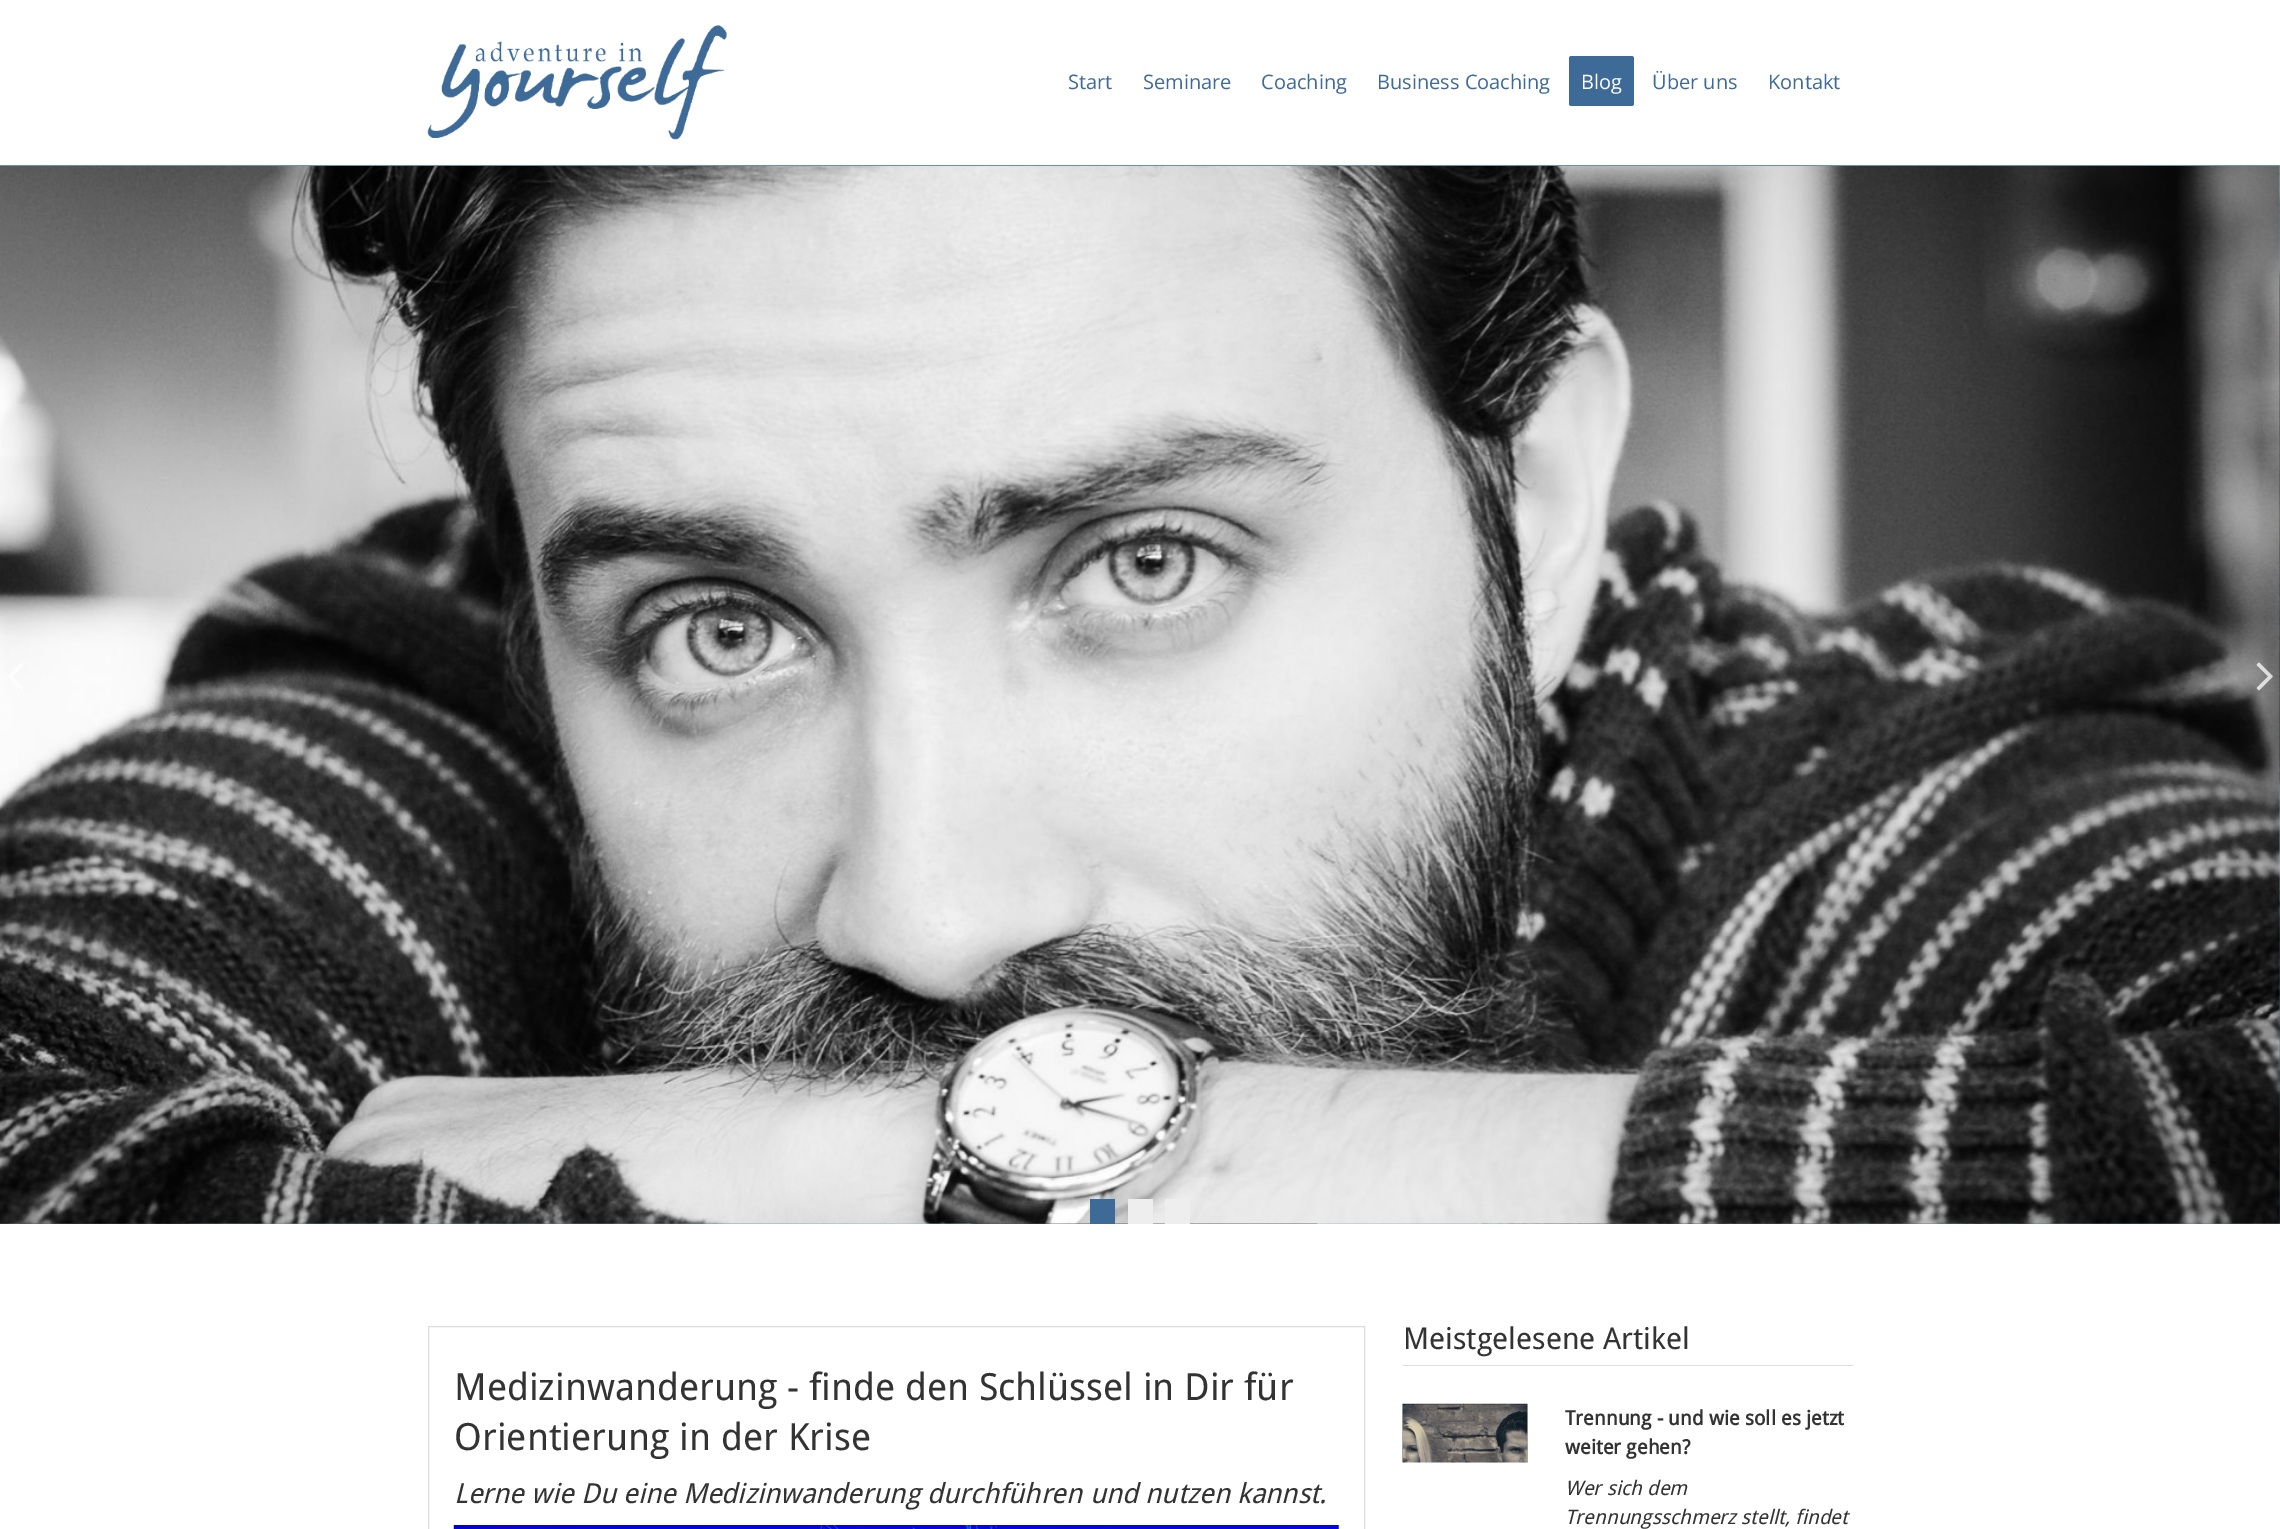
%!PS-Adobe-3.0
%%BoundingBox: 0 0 2280 1529
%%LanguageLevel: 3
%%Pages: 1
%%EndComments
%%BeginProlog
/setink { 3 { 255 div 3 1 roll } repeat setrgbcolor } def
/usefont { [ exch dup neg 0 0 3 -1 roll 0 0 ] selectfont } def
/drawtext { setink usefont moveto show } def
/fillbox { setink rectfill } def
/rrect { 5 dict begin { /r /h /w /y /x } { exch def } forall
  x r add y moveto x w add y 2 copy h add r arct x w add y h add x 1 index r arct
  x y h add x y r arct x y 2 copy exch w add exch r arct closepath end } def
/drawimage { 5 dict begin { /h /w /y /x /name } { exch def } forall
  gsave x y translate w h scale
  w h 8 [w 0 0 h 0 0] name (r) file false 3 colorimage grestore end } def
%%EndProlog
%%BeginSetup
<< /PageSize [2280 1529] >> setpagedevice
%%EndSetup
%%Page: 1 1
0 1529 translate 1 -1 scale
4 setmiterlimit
0 0 2280 1529 255 255 255 fillbox
0 165 2280 1 108 142 176 fillbox
(assets/img1.rgb) 427 25 300 115 drawimage
(Start) 1068 89 /OpenSans-Regular 20 62 106 151 drawtext
(Seminare) 1143 89 /OpenSans-Regular 20 62 106 151 drawtext
(Coaching) 1261 89 /OpenSans-Regular 20 62 106 151 drawtext
(Business Coaching) 1377 89 /OpenSans-Regular 20 62 106 151 drawtext
1569 56 65 50 2.5 rrect fill
(Blog) 1581 89 /OpenSans-Regular 20 255 255 255 drawtext
(Über uns) 1652 89 /OpenSans-Regular 20 62 106 151 drawtext
(Kontakt) 1768 89 /OpenSans-Regular 20 62 106 151 drawtext
(assets/img2.rgb) 0 166 2280 1058 drawimage
(assets/img3.rgb) 0 166 2280 1058 drawimage
(assets/img4.rgb) 9 663 14 27 drawimage
(assets/img5.rgb) 2256 662 17 29 drawimage
1090 1199 25 25 62 106 151 fillbox
1128 1199 25 25 238 238 238 fillbox
1165 1199 25 25 238 238 238 fillbox
221 221 221 setink
428.5 1326.5 936 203 rectstroke
(Medizinwanderung - finde den Schlüssel in Dir für) 454 1400 /DroidSans-Regular 37.5 51 51 51 drawtext
(Orientierung in der Krise) 454 1450 /DroidSans-Regular 37.5 51 51 51 drawtext
(Lerne wie Du eine Medizinwanderung durchführen und nutzen kannst.) 454 1503 /DroidSans-Italic 27.5 51 51 51 drawtext
(assets/img6.rgb) 453 1525 886 4 drawimage
1403 1365 450 1 221 221 221 fillbox
(Meistgelesene Artikel) 1403 1349 /DroidSans-Regular 30 51 51 51 drawtext
(assets/img7.rgb) 1402 1403 126 60 drawimage
(Trennung - und wie soll es jetzt) 1565 1425 /DroidSans-Bold 20 51 51 51 drawtext
(weiter gehen?) 1565 1454 /DroidSans-Bold 20 51 51 51 drawtext
(Wer sich dem) 1565 1495 /DroidSans-Italic 20 51 51 51 drawtext
(Trennungsschmerz stellt, findet) 1565 1524 /DroidSans-Italic 20 51 51 51 drawtext
showpage
%%EOF
